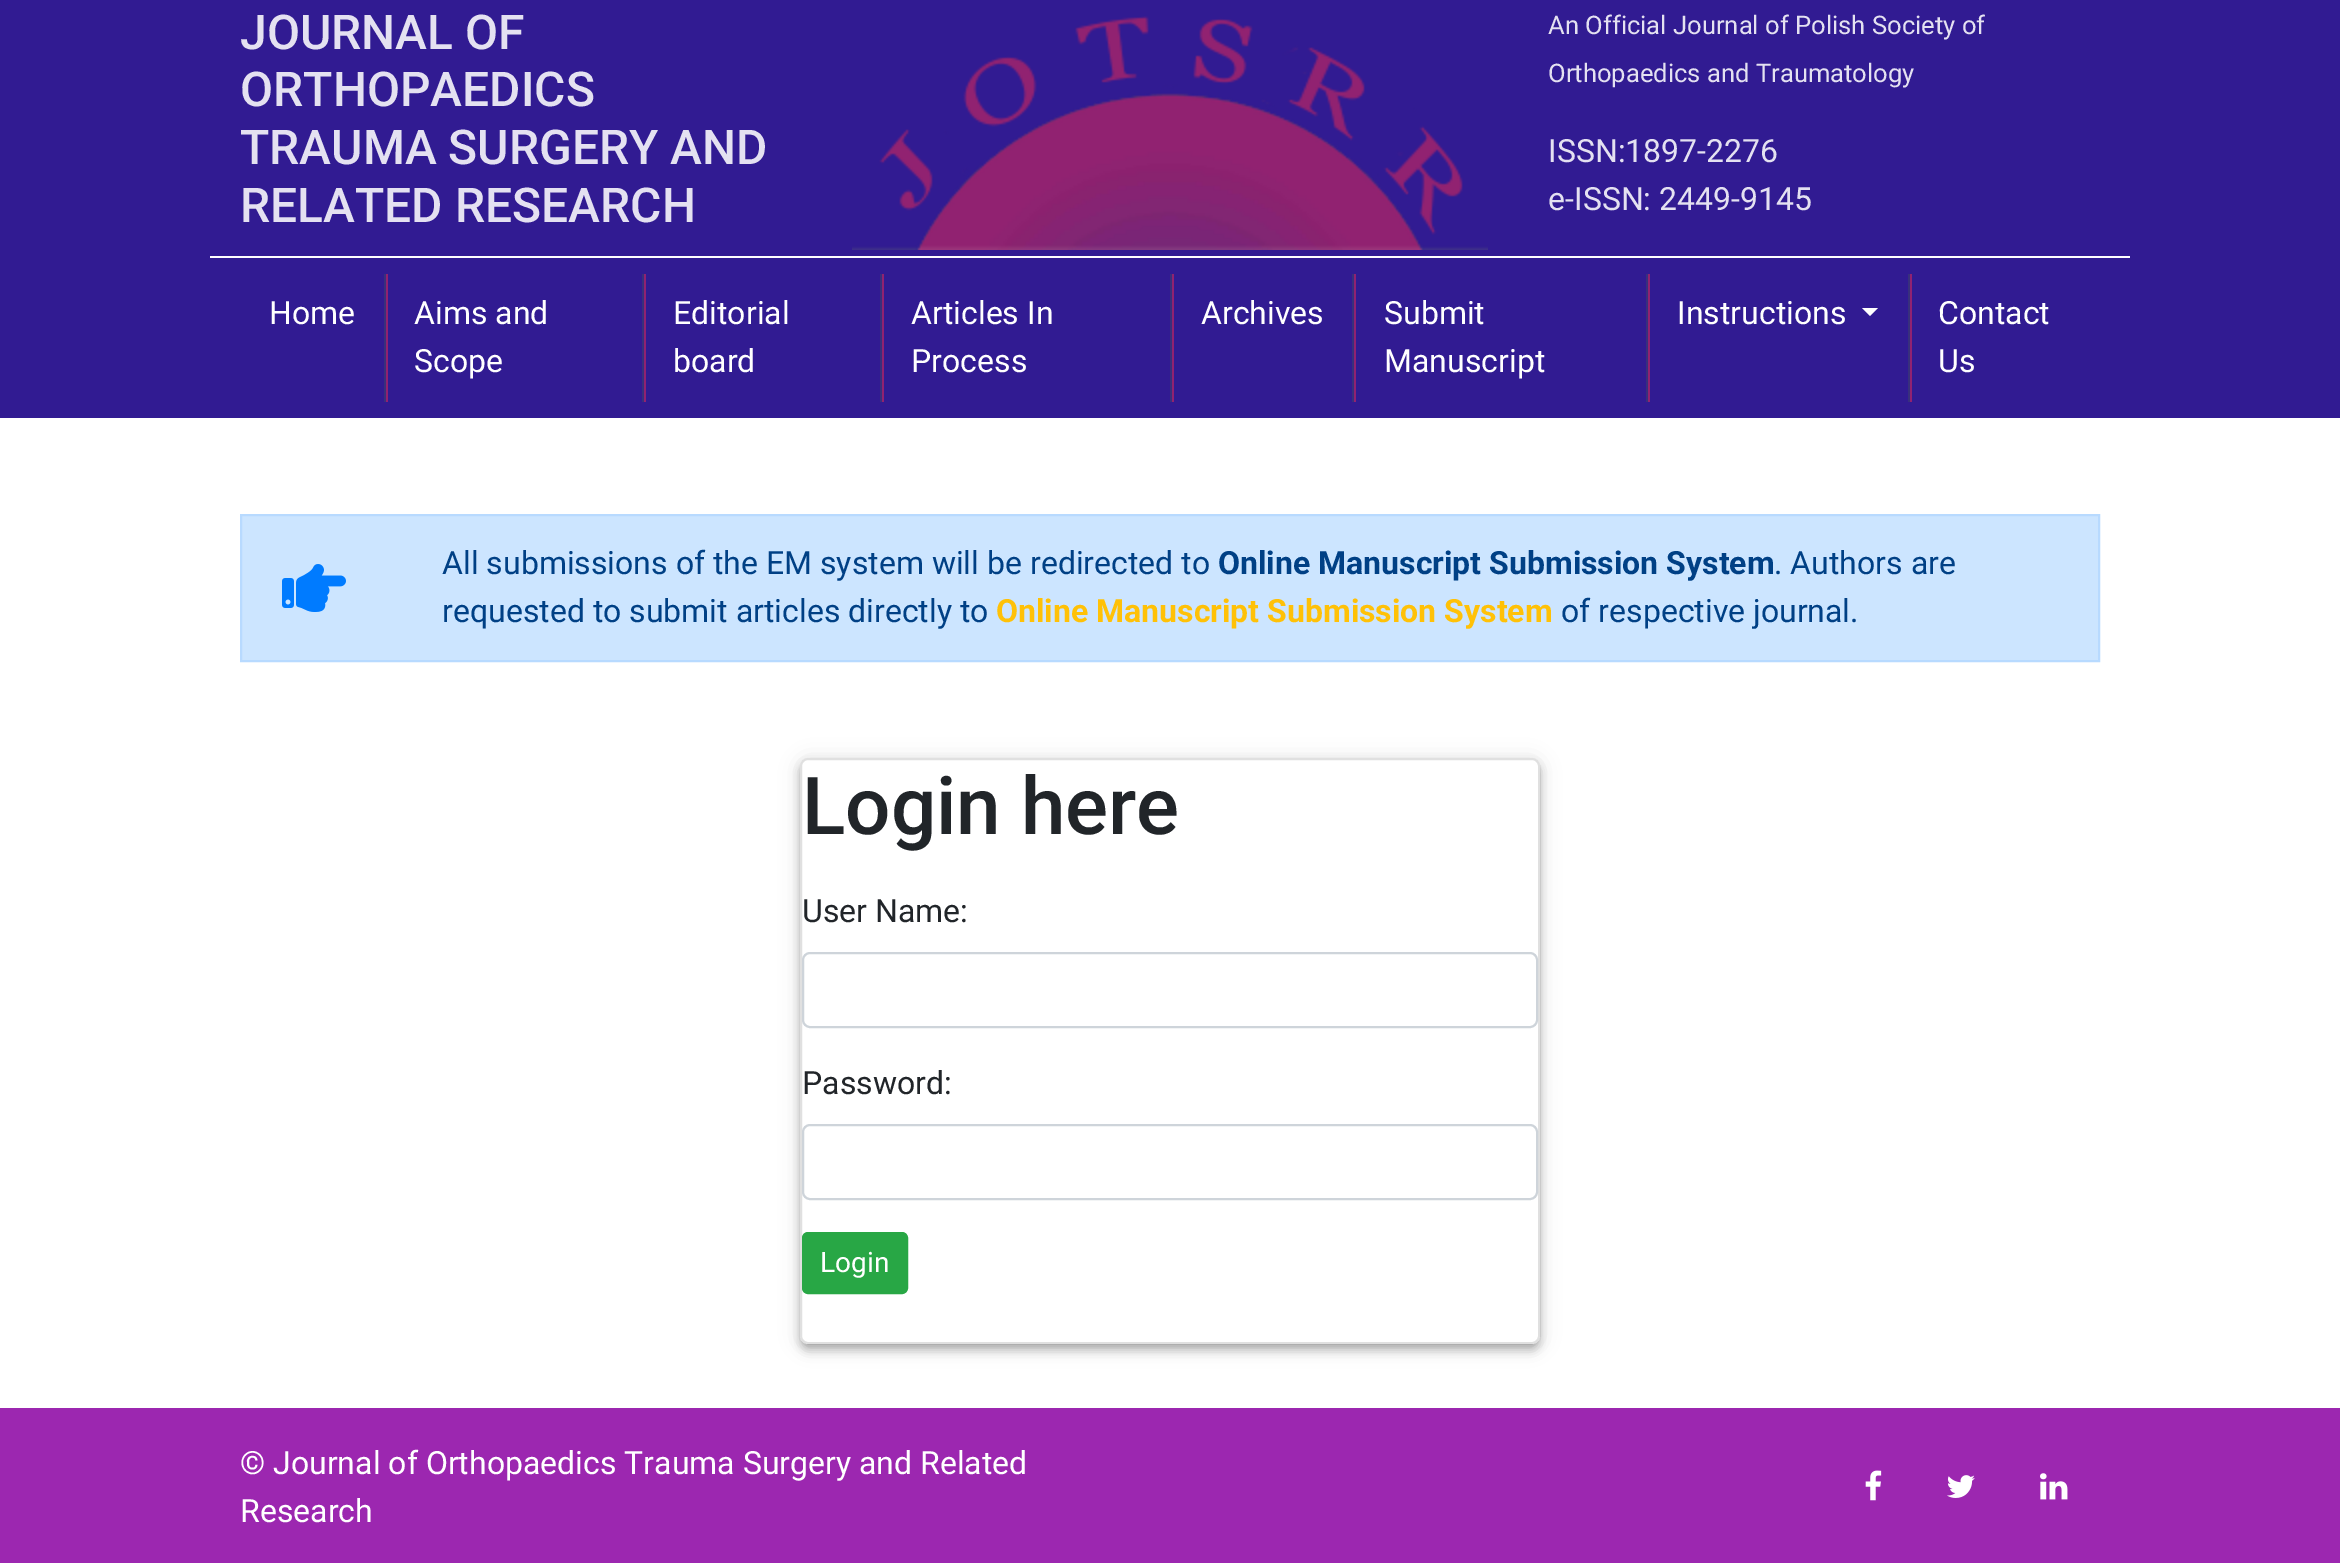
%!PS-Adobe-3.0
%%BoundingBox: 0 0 2340 1563
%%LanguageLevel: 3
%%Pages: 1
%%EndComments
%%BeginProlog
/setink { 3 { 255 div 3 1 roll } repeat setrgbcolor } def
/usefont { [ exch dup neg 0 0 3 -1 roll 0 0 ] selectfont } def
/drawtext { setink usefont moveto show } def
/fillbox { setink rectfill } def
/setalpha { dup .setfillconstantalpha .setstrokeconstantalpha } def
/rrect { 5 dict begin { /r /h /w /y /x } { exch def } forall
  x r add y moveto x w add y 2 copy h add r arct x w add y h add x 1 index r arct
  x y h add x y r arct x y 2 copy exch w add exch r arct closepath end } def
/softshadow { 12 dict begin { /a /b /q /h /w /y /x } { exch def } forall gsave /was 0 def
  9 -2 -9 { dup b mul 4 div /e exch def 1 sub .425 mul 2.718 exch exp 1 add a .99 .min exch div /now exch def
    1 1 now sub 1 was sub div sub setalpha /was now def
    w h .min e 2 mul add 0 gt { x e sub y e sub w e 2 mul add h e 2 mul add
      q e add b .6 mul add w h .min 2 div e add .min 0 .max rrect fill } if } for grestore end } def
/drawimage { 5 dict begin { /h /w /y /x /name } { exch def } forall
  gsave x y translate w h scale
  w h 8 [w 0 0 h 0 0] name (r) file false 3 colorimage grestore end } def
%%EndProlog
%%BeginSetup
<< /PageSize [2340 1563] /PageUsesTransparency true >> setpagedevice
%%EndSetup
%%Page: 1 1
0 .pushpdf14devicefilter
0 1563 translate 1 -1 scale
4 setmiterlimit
0 0 2340 1563 255 255 255 fillbox
0 0 2340 418 49 27 146 fillbox
210 256 1920 2 255 255 255 fillbox
(JOURNAL OF) 240 49 /Roboto-Medium 48 228 225 241 drawtext
(ORTHOPAEDICS) 240 106 /Roboto-Medium 48 228 225 241 drawtext
(TRAUMA SURGERY AND) 240 164 /Roboto-Medium 48 228 225 241 drawtext
(RELATED RESEARCH) 240 222 /Roboto-Medium 48 228 225 241 drawtext
(assets/img1.rgb) 852 16 636 234 drawimage
(An Official Journal of Polish Society of) 1548 34 /Roboto-Regular 25.6 228 225 241 drawtext
(Orthopaedics and Traumatology) 1548 82 /Roboto-Regular 25.6 228 225 241 drawtext
(ISSN:1897-2276) 1548 162 /Roboto-Regular 32 228 225 241 drawtext
(e-ISSN: 2449-9145) 1548 210 /Roboto-Regular 32 228 225 241 drawtext
386 274 2 128 145 34 113 fillbox
384 274 2 128 56 48 125 fillbox
(Home) 269 324 /Roboto-Regular 32 255 255 255 drawtext
644 274 2 128 145 34 113 fillbox
642 274 2 128 56 48 125 fillbox
(Aims and) 414 324 /Roboto-Regular 32 255 255 255 drawtext
(Scope) 414 372 /Roboto-Regular 32 255 255 255 drawtext
882 274 2 128 145 34 113 fillbox
880 274 2 128 56 48 125 fillbox
(Editorial) 673 324 /Roboto-Regular 32 255 255 255 drawtext
(board) 673 372 /Roboto-Regular 32 255 255 255 drawtext
1172 274 2 128 145 34 113 fillbox
1170 274 2 128 56 48 125 fillbox
(Articles In) 911 324 /Roboto-Regular 32 255 255 255 drawtext
(Process) 911 372 /Roboto-Regular 32 255 255 255 drawtext
1354 274 2 128 145 34 113 fillbox
1352 274 2 128 56 48 125 fillbox
(Archives) 1201 324 /Roboto-Regular 32 255 255 255 drawtext
1648 274 2 128 145 34 113 fillbox
1646 274 2 128 56 48 125 fillbox
(Submit) 1384 324 /Roboto-Regular 32 255 255 255 drawtext
(Manuscript) 1384 372 /Roboto-Regular 32 255 255 255 drawtext
1910 274 2 128 145 34 113 fillbox
1908 274 2 128 56 48 125 fillbox
(Instructions) 1677 324 /Roboto-Regular 32 255 255 255 drawtext
1862 308 moveto 1878 308 lineto 1870 316 lineto closepath fill
(Contact) 1938 324 /Roboto-Regular 32 255 255 255 drawtext
(Us) 1938 372 /Roboto-Regular 32 255 255 255 drawtext
204 229 255 setink
241 515 moveto 2099 515 lineto 2099 661 lineto 241 661 lineto closepath gsave fill grestore
184 218 255 setink
2 setlinewidth
stroke
(assets/img2.rgb) 282 564 64 48 drawimage
(All submissions of the EM system will be redirected to) 442 574 /Roboto-Regular 32 0 64 133 drawtext
(Online Manuscript Submission System) 1218 574 /Roboto-Bold 32 0 64 133 drawtext
(. Authors are) 1774 574 /Roboto-Regular 32 0 64 133 drawtext
(requested to submit articles directly to) 442 622 /Roboto-Regular 32 0 64 133 drawtext
(Online Manuscript Submission System) 996 622 /Roboto-Bold 32 255 193 7 drawtext
(of respective journal.) 1561 622 /Roboto-Regular 32 0 64 133 drawtext
0 0 0 setink
802 764 736 582 6 4 0.2 softshadow
800 760 740 586 8 10 0.12 softshadow
800 766 740 586 8 5 0.14 softshadow
255 255 255 setink
800 758 740 586 8 rrect fill
0.12 setalpha
0 0 0 setink
801 759 738 584 7 rrect stroke
1 setalpha
(Login here) 802 834 /Roboto-Medium 80 33 37 41 drawtext
(User Name:) 802 922 /Roboto-Regular 32 33 37 41 drawtext
206 212 218 setink
803 953 734 74 7 rrect stroke
(Password:) 802 1094 /Roboto-Regular 32 33 37 41 drawtext
206 212 218 setink
803 1125 734 74 7 rrect stroke
40 167 69 setink
803 1233 104 60 5 rrect gsave fill grestore
stroke
(Login) 820 1272 /Roboto-Regular 28 255 255 255 drawtext
0 1408 2340 155 156 39 176 fillbox
(© Journal of Orthopaedics Trauma Surgery and Related) 240 1474 /Roboto-Regular 32 255 255 255 drawtext
(Research) 240 1522 /Roboto-Regular 32 255 255 255 drawtext
(assets/img3.rgb) 1865 1470 17 31 drawimage
(assets/img4.rgb) 1947 1475 28 23 drawimage
(assets/img5.rgb) 2040 1473 28 27 drawimage
.poppdf14devicefilter showpage
%%EOF
